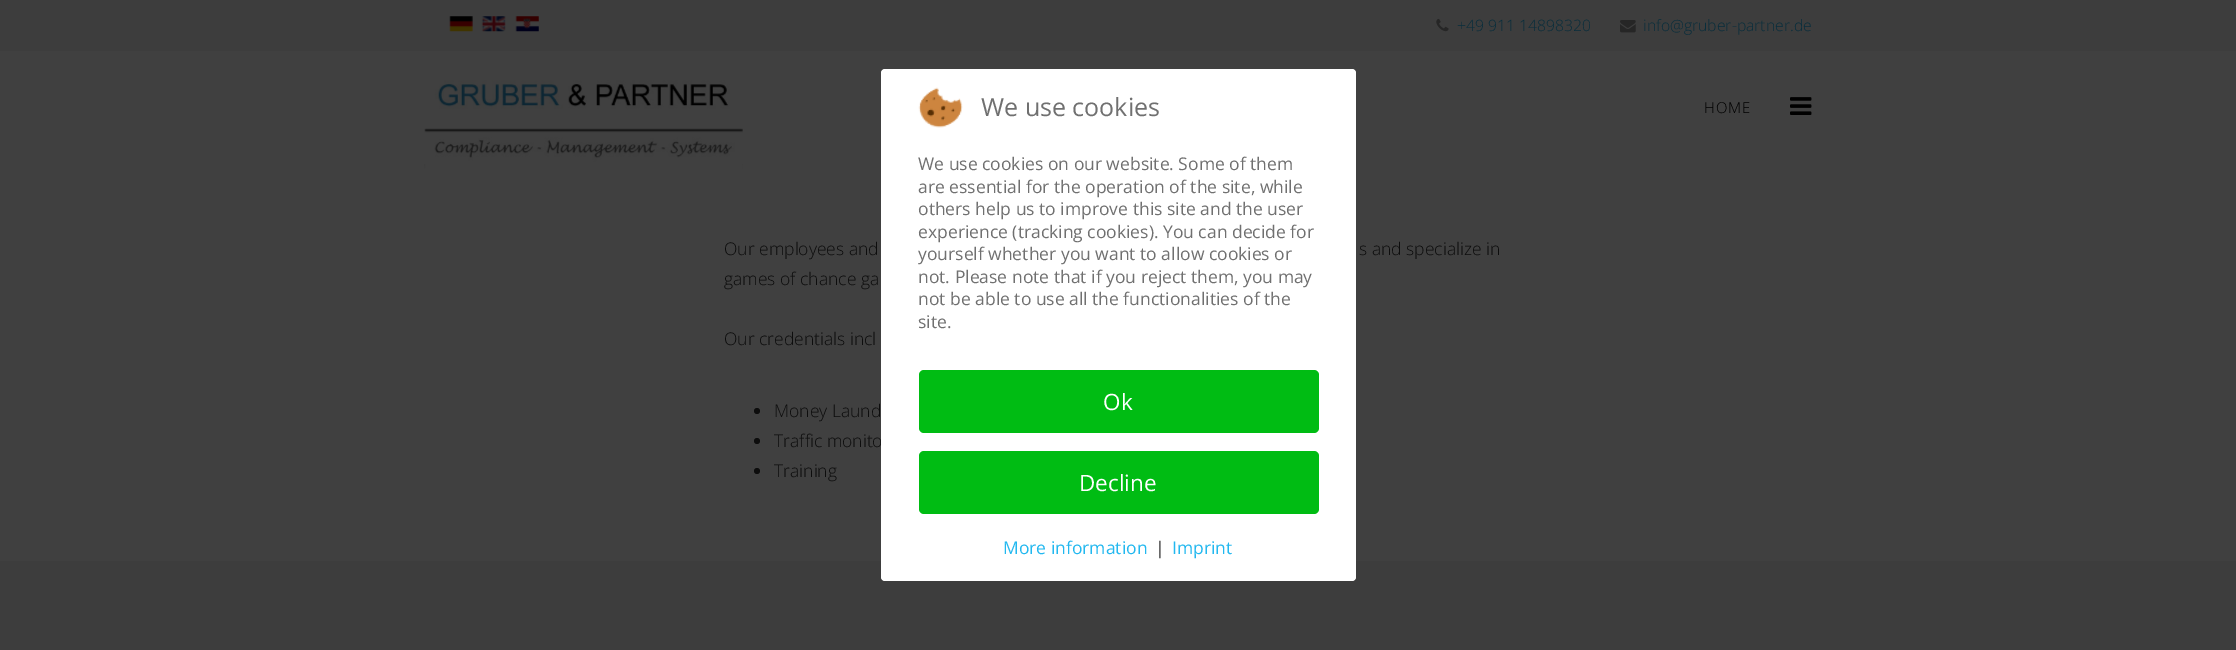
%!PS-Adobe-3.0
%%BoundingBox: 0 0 2236 650
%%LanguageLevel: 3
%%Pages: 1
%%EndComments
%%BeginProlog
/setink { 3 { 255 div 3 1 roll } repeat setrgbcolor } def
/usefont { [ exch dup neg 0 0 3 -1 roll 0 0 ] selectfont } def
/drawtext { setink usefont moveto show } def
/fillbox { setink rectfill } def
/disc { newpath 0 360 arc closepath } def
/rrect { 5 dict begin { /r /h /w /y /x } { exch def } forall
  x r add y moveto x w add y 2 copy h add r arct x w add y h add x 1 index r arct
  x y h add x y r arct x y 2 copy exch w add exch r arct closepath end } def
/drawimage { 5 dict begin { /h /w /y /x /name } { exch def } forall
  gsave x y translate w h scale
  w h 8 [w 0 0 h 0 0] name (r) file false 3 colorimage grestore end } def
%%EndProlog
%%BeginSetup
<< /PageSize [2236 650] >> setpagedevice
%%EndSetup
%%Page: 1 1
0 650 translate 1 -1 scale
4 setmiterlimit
0 0 2236 650 64 64 64 fillbox
0 0 2236 51 61 61 61 fillbox
(assets/img1.rgb) 449 16 24 16 drawimage
(assets/img2.rgb) 481 16 25 16 drawimage
(assets/img3.rgb) 515 16 24 16 drawimage
(assets/img4.rgb) 1436 18 13 14 drawimage
(+49 911 14898320) 1457 31 /OpenSans-Light 15.75 9 46 60 drawtext
(assets/img5.rgb) 1620 20 16 13 drawimage
(info@gruber-partner.de) 1643 31 /OpenSans-Light 15.75 9 46 60 drawtext
(assets/img6.rgb) 424 80 319 89 drawimage
/OpenSans-Light 15 usefont
0 0 0 setink
1704 113 moveto 1 0 (HOME) ashow
(assets/img7.rgb) 1790 97 22 18 drawimage
(Our employees and) 724 255 /OpenSans-Light 17.5 13 13 13 drawtext
(s and specialize in) 1359 255 /OpenSans-Light 17.5 13 13 13 drawtext
(games of chance ga) 724 285 /OpenSans-Light 17.5 13 13 13 drawtext
(Our credentials incl) 724 345 /OpenSans-Light 17.5 13 13 13 drawtext
757 411 3 disc fill
(Money Laund) 774 417 /OpenSans-Light 17.5 13 13 13 drawtext
757 441 3 disc fill
(Traffic monito) 774 447 /OpenSans-Light 17.5 13 13 13 drawtext
757 471 3 disc fill
(Training) 774 477 /OpenSans-Light 17.5 13 13 13 drawtext
0 561 2236 89 61 61 61 fillbox
255 255 255 setink
881 69 475 512 4 rrect fill
(assets/img8.rgb) 918 87 45 41 drawimage
(We use cookies) 981 116 /OpenSans-Regular 25 112 112 112 drawtext
(We use cookies on our website. Some of them) 918 170 /OpenSans-Regular 17.5 112 112 112 drawtext
(are essential for the operation of the site, while) 918 193 /OpenSans-Regular 17.5 112 112 112 drawtext
(others help us to improve this site and the user) 918 215 /OpenSans-Regular 17.5 112 112 112 drawtext
(experience \(tracking cookies\). You can decide for) 918 238 /OpenSans-Regular 17.5 112 112 112 drawtext
(yourself whether you want to allow cookies or) 918 260 /OpenSans-Regular 17.5 112 112 112 drawtext
(not. Please note that if you reject them, you may) 918 283 /OpenSans-Regular 17.5 112 112 112 drawtext
(not be able to use all the functionalities of the) 918 305 /OpenSans-Regular 17.5 112 112 112 drawtext
(site.) 918 328 /OpenSans-Regular 17.5 112 112 112 drawtext
0 188 19 setink
919 370 400 63 5 rrect fill
(Ok) 1103 410 /OpenSans-Regular 22.5 255 255 255 drawtext
0 188 19 setink
919 451 400 63 5 rrect fill
(Decline) 1079 491 /OpenSans-Regular 22.5 255 255 255 drawtext
(More information) 1003 554 /OpenSans-Regular 17.5 34 184 240 drawtext
(|) 1155 554 /OpenSans-Regular 17.5 51 51 51 drawtext
(Imprint) 1172 554 /OpenSans-Regular 17.5 34 184 240 drawtext
showpage
%%EOF
